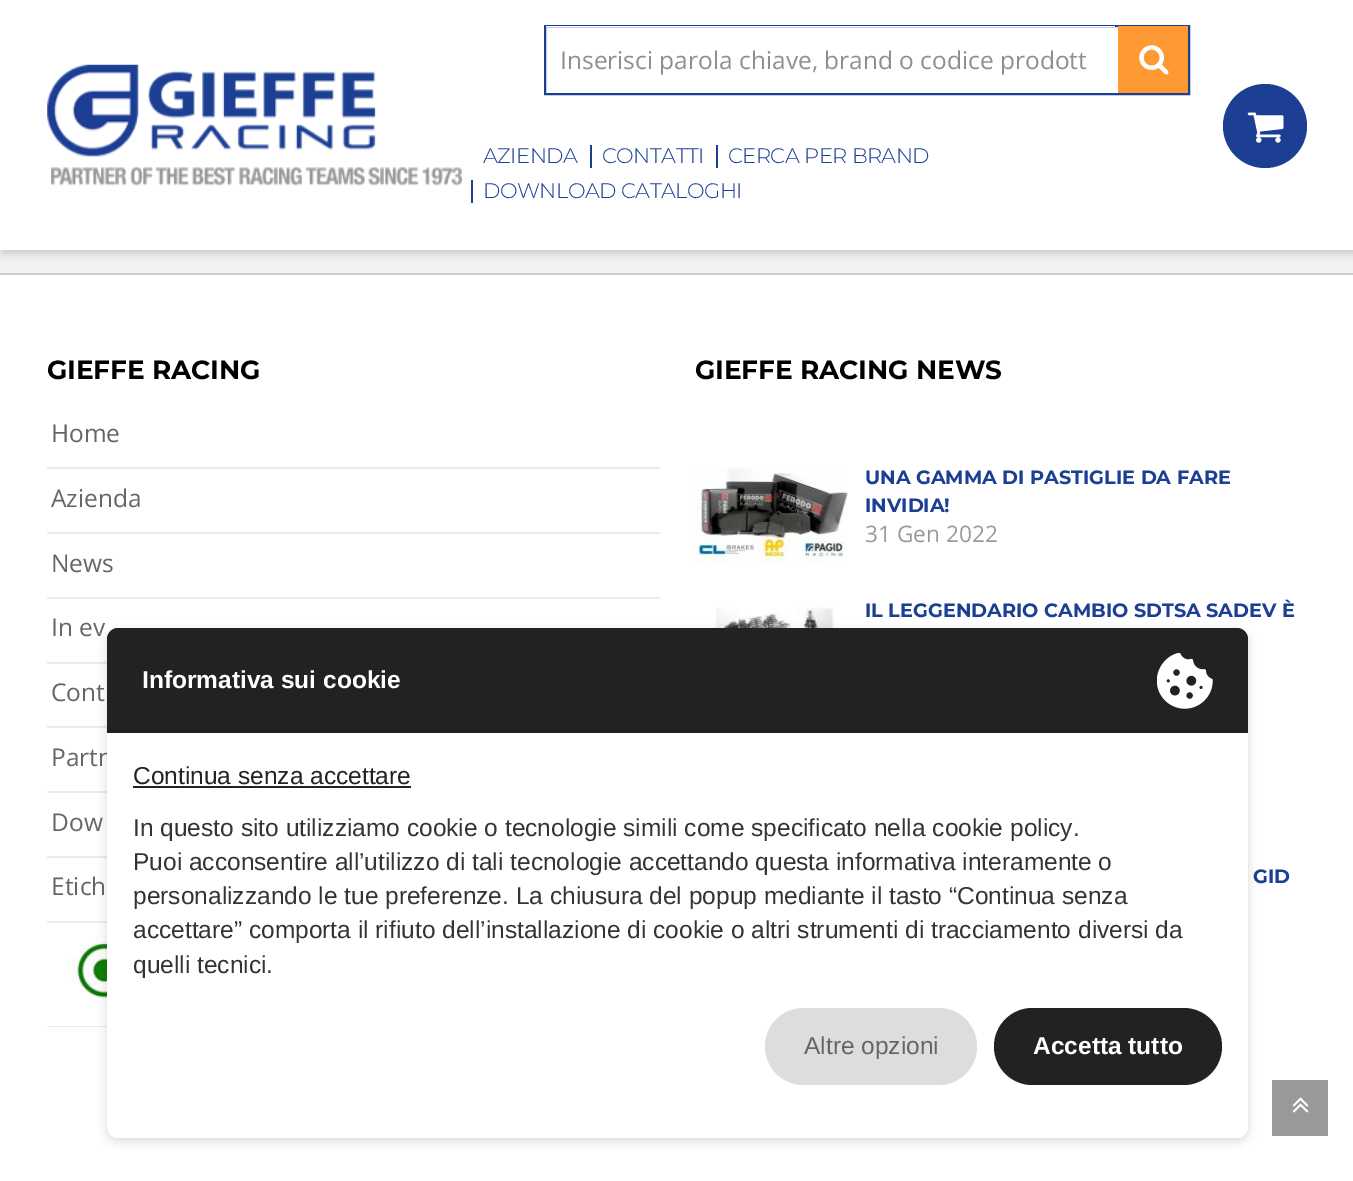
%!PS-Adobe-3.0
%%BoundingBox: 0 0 1353 1181
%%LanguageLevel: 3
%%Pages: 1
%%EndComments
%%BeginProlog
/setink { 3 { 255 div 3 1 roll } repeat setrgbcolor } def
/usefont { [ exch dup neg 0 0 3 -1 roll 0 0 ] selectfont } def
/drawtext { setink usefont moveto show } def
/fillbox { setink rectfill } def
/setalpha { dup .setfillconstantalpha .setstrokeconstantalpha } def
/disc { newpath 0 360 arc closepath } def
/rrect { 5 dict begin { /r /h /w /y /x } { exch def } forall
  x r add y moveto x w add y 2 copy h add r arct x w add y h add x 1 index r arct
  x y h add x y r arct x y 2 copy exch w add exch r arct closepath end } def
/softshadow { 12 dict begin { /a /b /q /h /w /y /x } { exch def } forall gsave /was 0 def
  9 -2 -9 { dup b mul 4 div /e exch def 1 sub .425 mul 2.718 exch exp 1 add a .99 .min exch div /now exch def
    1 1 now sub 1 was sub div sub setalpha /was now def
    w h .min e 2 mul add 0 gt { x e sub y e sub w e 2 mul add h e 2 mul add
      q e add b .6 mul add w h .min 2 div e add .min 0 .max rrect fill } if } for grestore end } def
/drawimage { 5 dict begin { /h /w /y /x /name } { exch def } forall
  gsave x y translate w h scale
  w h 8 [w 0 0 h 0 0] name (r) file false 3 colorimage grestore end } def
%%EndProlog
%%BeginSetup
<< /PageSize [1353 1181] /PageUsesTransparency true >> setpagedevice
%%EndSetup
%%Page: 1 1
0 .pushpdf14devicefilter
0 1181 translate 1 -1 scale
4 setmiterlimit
0 0 1353 1181 255 255 255 fillbox
0 250 1353 23 242 242 242 fillbox
0 0 0 setink
2 4 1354 250 0 3.5 0.15 softshadow
0 0 1353 250 255 255 255 fillbox
(assets/img1.rgb) 47 64 415 122 drawimage
28 63 148 setink
2 setlinewidth
545 26 644 68 rectstroke
546 26 569 1 255 255 255 fillbox
(Inserisci parola chiave, brand o codice prodott) 560 69 /OpenSans-Regular 24.5 143 143 143 drawtext
1118 26 70 67 255 153 51 fillbox
(assets/img2.rgb) 1139 45 30 30 drawimage
/Montserrat-Light 21 usefont
28 63 148 setink
483 163 moveto -0.5 0 (AZIENDA) ashow
590 145 2 23 28 63 148 fillbox
602 163 moveto -0.5 0 (CONTATTI) ashow
716 145 2 23 28 63 148 fillbox
728 163 moveto -0.5 0 (CERCA PER BRAND) ashow
471 180 2 23 28 63 148 fillbox
483 198 moveto -0.5 0 (DOWNLOAD CATALOGHI) ashow
1265 126 42 disc fill
(assets/img3.rgb) 1247 112 37 31 drawimage
0 273 1353 2 206 206 206 fillbox
(GIEFFE RACING) 47 379 /Montserrat-Bold 26.25 0 0 0 drawtext
47 467 613 2 235 235 235 fillbox
(Home) 51 442 /OpenSans-Regular 24.5 102 102 102 drawtext
47 532 613 2 235 235 235 fillbox
(Azienda) 51 507 /OpenSans-Regular 24.5 102 102 102 drawtext
47 597 613 2 235 235 235 fillbox
(News) 51 572 /OpenSans-Regular 24.5 102 102 102 drawtext
47 662 60 2 235 235 235 fillbox
(In ev) 51 636 /OpenSans-Regular 24.5 102 102 102 drawtext
47 726 60 2 235 235 235 fillbox
(Cont) 51 701 /OpenSans-Regular 24.5 102 102 102 drawtext
47 791 60 2 235 235 235 fillbox
(Partn) 51 766 /OpenSans-Regular 24.5 102 102 102 drawtext
47 856 60 2 235 235 235 fillbox
(Dow) 51 831 /OpenSans-Regular 24.5 102 102 102 drawtext
47 921 60 2 235 235 235 fillbox
(Etich) 51 895 /OpenSans-Regular 24.5 102 102 102 drawtext
47 1026 60 1 235 235 235 fillbox
(assets/img4.rgb) 71 936 36 66 drawimage
(GIEFFE RACING NEWS) 695 379 /Montserrat-Bold 26.25 0 0 0 drawtext
(assets/img5.rgb) 695 467 153 97 drawimage
(UNA GAMMA DI PASTIGLIE DA FARE) 865 484 /Montserrat-Bold 19.25 28 63 148 drawtext
(INVIDIA!) 865 512 /Montserrat-Bold 19.25 28 63 148 drawtext
(31 Gen 2022) 865 542 /OpenSans-Regular 22.75 153 153 153 drawtext
(assets/img6.rgb) 710 607 125 21 drawimage
(IL LEGGENDARIO CAMBIO SDTSA SADEV È) 865 617 /Montserrat-Bold 19.25 28 63 148 drawtext
(GID) 1253 883 /Montserrat-Bold 19.25 28 63 148 drawtext
1272 1080 56 56 153 153 153 fillbox
(assets/img7.rgb) 1292 1097 17 16 drawimage
0 0 0 setink
107 632 1141 509 11 5 0.15 softshadow
255 255 255 setink
107 628 1141 510 11 rrect fill
34 34 34 setink
118 628 moveto 1237 628 lineto 1243 628 1248 633 1248 639 curveto 1248 733 lineto 107 733 lineto 107 639 lineto 107 633 112 628 118 628 curveto closepath fill
(Informativa sui cookie) 142 688 /LiberationSans-Bold 24.5 255 255 255 drawtext
(assets/img8.rgb) 1157 653 56 56 drawimage
(Continua senza accettare) 133 784 /LiberationSans-Regular 24.5 34 34 34 drawtext
133 786 278 2 34 34 34 fillbox
(In questo sito utilizziamo cookie o tecnologie simili come specificato nella cookie policy.) 133 836 /LiberationSans-Regular 24.5 51 51 51 drawtext
(Puoi acconsentire all’utilizzo di tali tecnologie accettando questa informativa interamente o) 133 870 /LiberationSans-Regular 24.5 51 51 51 drawtext
(personalizzando le tue preferenze. La chiusura del popup mediante il tasto “Continua senza) 133 904 /LiberationSans-Regular 24.5 51 51 51 drawtext
(accettare” comporta il rifiuto dell’installazione di cookie o altri strumenti di tracciamento diversi da) 133 938 /LiberationSans-Regular 24.5 51 51 51 drawtext
(quelli tecnici.) 133 973 /LiberationSans-Regular 24.5 51 51 51 drawtext
221 221 221 setink
765 1008 212 77 38.5 rrect fill
(Altre opzioni) 804 1054 /LiberationSans-Regular 24.5 102 102 102 drawtext
34 34 34 setink
994 1008 228 77 38.5 rrect fill
(Accetta tutto) 1033 1054 /LiberationSans-Bold 24.5 255 255 255 drawtext
.poppdf14devicefilter showpage
%%EOF
